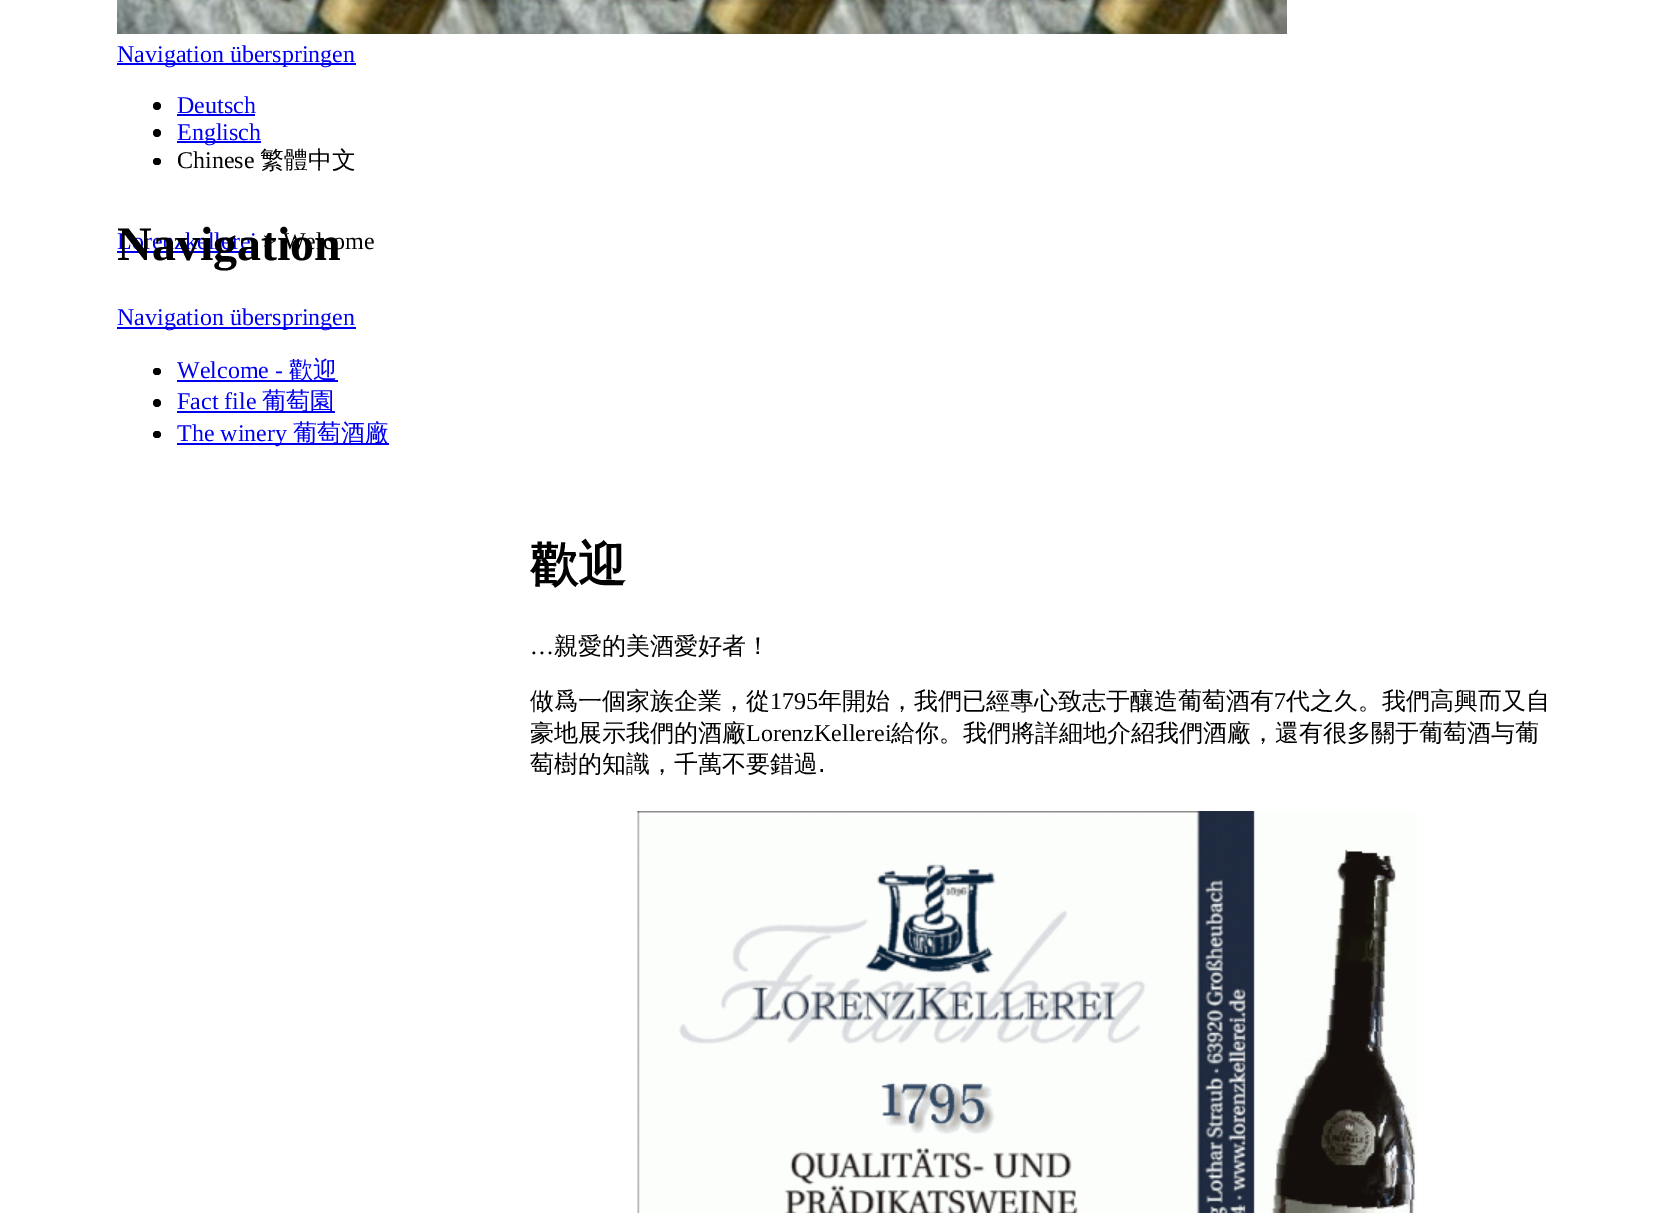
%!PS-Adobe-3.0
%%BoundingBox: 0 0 1674 1213
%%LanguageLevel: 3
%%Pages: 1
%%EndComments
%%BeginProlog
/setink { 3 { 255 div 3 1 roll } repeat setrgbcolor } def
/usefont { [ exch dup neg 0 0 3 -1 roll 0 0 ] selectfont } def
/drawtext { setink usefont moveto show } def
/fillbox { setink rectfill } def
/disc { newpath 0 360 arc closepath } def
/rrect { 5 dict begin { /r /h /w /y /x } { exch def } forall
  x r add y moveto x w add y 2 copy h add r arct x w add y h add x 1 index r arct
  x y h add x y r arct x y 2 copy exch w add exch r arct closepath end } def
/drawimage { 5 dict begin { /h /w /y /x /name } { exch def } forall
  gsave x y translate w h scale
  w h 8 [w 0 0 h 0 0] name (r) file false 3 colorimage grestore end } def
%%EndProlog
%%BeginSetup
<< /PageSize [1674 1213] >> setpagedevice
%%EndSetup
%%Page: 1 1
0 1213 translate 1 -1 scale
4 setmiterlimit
0 0 1674 1213 255 255 255 fillbox
(assets/img1.rgb) 117 0 1170 34 drawimage
117 63 239 2 0 0 238 fillbox
(Navigation überspringen) 117 62 /LiberationSerif-Regular 24 0 0 238 drawtext
0 0 0 setink
157 106 4 disc fill
(Deutsch) 177 113 /LiberationSerif-Regular 24 0 0 238 drawtext
177 114 78 2 0 0 238 fillbox
0 0 0 setink
157 133 4 disc fill
177 141 84 2 0 0 238 fillbox
(Englisch) 177 140 /LiberationSerif-Regular 24 0 0 238 drawtext
0 0 0 setink
153 158 8 7 3.5 rrect fill
(Chinese) 177 168 /LiberationSerif-Regular 24 0 0 0 drawtext
(繁體中文) 260 168 /WenQuanYiZenHei-Medium 24 0 0 0 drawtext
(Lorenzkellerei) 117 249 /LiberationSerif-Regular 24 0 0 238 drawtext
117 251 140 2 0 0 238 fillbox
(> Welcome) 263 249 /LiberationSerif-Regular 24 0 0 0 drawtext
(Navigation) 117 260 /LiberationSerif-Bold 48 0 0 0 drawtext
117 327 239 2 0 0 238 fillbox
(Navigation überspringen) 117 325 /LiberationSerif-Regular 24 0 0 238 drawtext
0 0 0 setink
153 368 8 7 3.5 rrect fill
(Welcome -) 177 378 /LiberationSerif-Regular 24 0 0 238 drawtext
177 380 161 2 0 0 238 fillbox
(歡迎) 289 378 /WenQuanYiZenHei-Medium 24 0 0 238 drawtext
0 0 0 setink
157 403 4 disc fill
(Fact file) 177 409 /LiberationSerif-Regular 24 0 0 238 drawtext
177 411 158 2 0 0 238 fillbox
(葡萄園) 262 409 /WenQuanYiZenHei-Medium 24 0 0 238 drawtext
0 0 0 setink
153 431 8 7 3.5 rrect fill
177 443 212 2 0 0 238 fillbox
(The winery) 177 441 /LiberationSerif-Regular 24 0 0 238 drawtext
(葡萄酒廠) 293 441 /WenQuanYiZenHei-Medium 24 0 0 238 drawtext
(歡迎) 530 581 /WenQuanYiZenHei-Bold 48 0 0 0 drawtext
(…) 530 654 /LiberationSerif-Regular 24 0 0 0 drawtext
(親愛的美酒愛好者！) 554 654 /WenQuanYiZenHei-Medium 24 0 0 0 drawtext
(做爲一個家族企業，從) 530 709 /WenQuanYiZenHei-Medium 24 0 0 0 drawtext
(1795) 770 709 /LiberationSerif-Regular 24 0 0 0 drawtext
(年開始，我們已經專心致志于釀造葡萄酒有) 818 709 /WenQuanYiZenHei-Medium 24 0 0 0 drawtext
(7) 1274 709 /LiberationSerif-Regular 24 0 0 0 drawtext
(代之久。我們高興而又自) 1286 709 /WenQuanYiZenHei-Medium 24 0 0 0 drawtext
(豪地展示我們的酒廠) 530 741 /WenQuanYiZenHei-Medium 24 0 0 0 drawtext
(LorenzKellerei) 746 741 /LiberationSerif-Regular 24 0 0 0 drawtext
(給你。我們將詳細地介紹我們酒廠，還有很多關于葡萄酒与葡) 891 741 /WenQuanYiZenHei-Medium 24 0 0 0 drawtext
(萄樹的知識，千萬不要錯過) 530 772 /WenQuanYiZenHei-Medium 24 0 0 0 drawtext
(.) 818 772 /DejaVuSans-Regular 24 0 0 0 drawtext
(assets/img2.rgb) 637 811 780 402 drawimage
showpage
%%EOF
